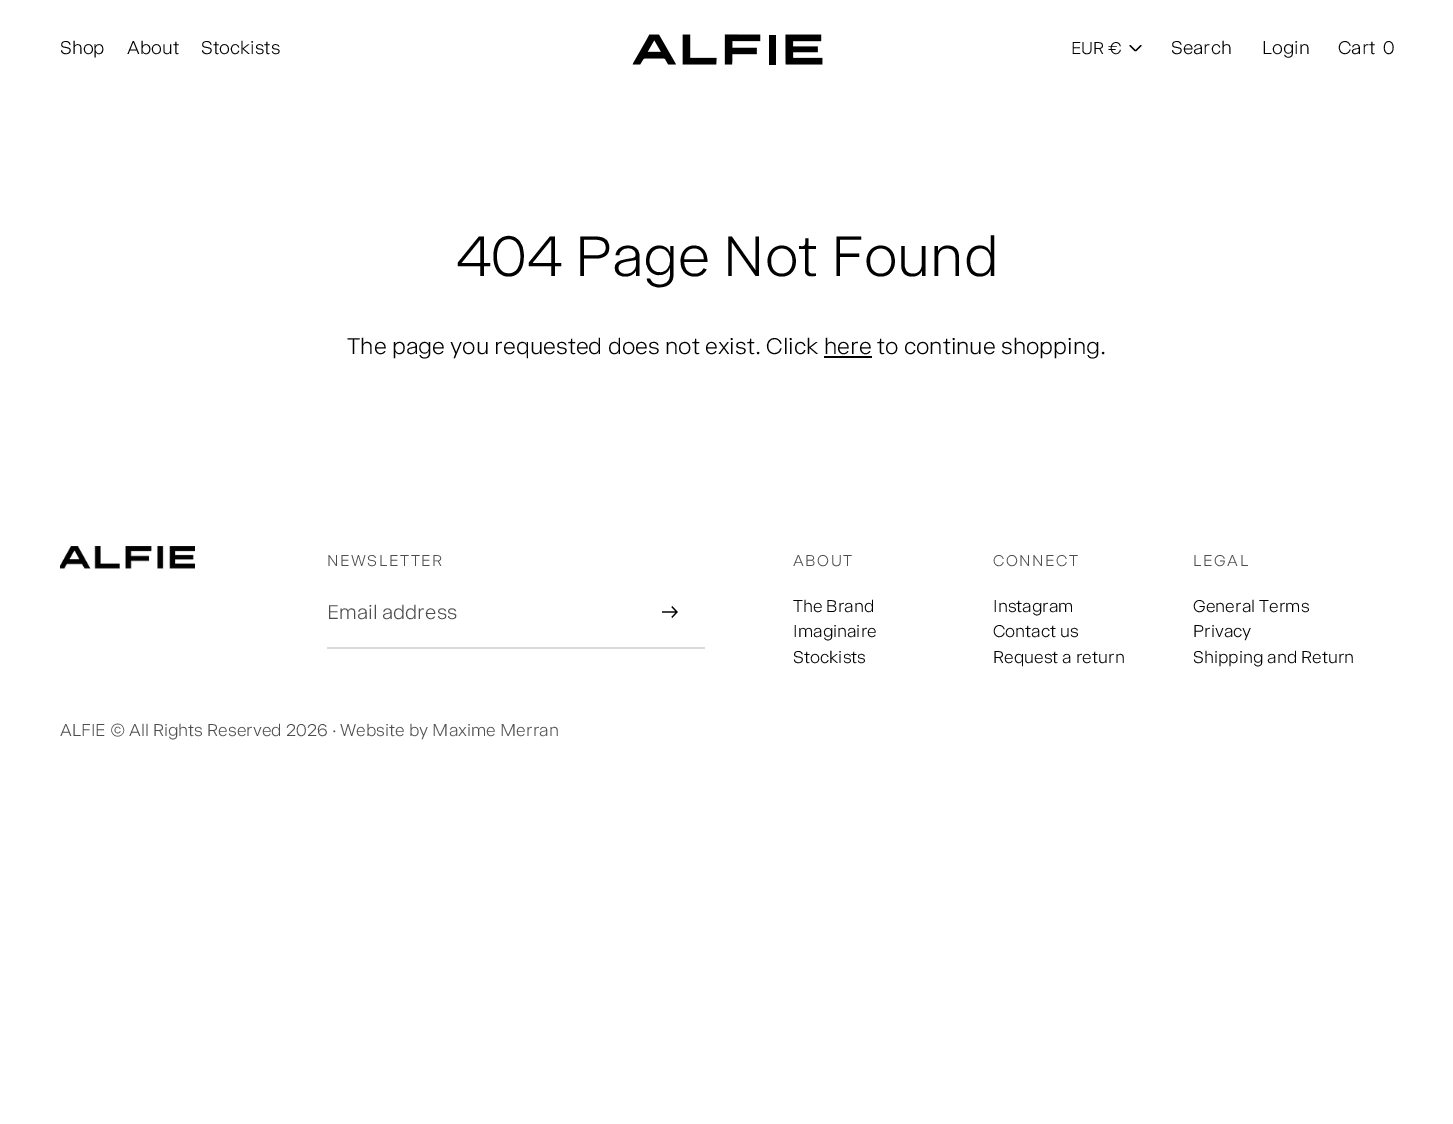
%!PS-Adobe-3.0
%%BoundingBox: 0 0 1453 1124
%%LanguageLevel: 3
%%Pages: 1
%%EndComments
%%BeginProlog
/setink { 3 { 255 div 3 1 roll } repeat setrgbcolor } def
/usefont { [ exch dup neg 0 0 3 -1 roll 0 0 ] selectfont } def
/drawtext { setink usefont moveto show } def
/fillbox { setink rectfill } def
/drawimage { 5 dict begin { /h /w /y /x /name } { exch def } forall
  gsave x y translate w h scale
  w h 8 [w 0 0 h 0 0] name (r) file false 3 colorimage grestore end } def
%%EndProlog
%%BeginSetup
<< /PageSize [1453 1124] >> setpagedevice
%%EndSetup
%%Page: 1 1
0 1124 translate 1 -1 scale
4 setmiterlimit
0 0 1453 1124 255 255 255 fillbox
(Shop) 60 54 /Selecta-Light 19.5 0 0 0 drawtext
(About) 127 54 /Selecta-Light 19.5 0 0 0 drawtext
(Stockists) 201 54 /Selecta-Light 19.5 0 0 0 drawtext
(assets/img1.rgb) 632 34 191 31 drawimage
(EUR €) 1071 54 /Selecta-Light 18 0 0 0 drawtext
1.2 setlinewidth
1 setlinecap
1 setlinejoin
1130 45.5 moveto 1135 50.5 lineto 1136 50.5 lineto 1141 45.5 lineto stroke
(Search) 1171 54 /Selecta-Light 19.5 0 0 0 drawtext
(Login) 1262 54 /Selecta-Light 19.5 0 0 0 drawtext
(Cart) 1338 54 /Selecta-Light 19.5 0 0 0 drawtext
(0) 1383 54 /Selecta-Light 19.5 0 0 0 drawtext
(404 Page Not Found) 456 276 /Selecta-Light 60 0 0 0 drawtext
(The page you requested does not exist. Click here to continue shopping.) 347 354 /Selecta-Light 24 0 0 0 drawtext
824 356 48 2 0 0 0 fillbox
(assets/img2.rgb) 60 546 135 23 drawimage
/Selecta-Light 16.5 usefont
77 77 77 setink
327 566 moveto 1.6 0 (NEWSLETTER) ashow
327 647 378 2 217 217 217 fillbox
(Email address) 327 619 /Selecta-Light 21 77 77 77 drawtext
(assets/img3.rgb) 662 606 16 12 drawimage
/Selecta-Light 16.5 usefont
793 566 moveto 1.6 0 (ABOUT) ashow
(The Brand) 793 612 /Selecta-Light 18 0 0 0 drawtext
(Imaginaire) 793 637 /Selecta-Light 18 0 0 0 drawtext
(Stockists) 793 663 /Selecta-Light 18 0 0 0 drawtext
/Selecta-Light 16.5 usefont
77 77 77 setink
993 566 moveto 1.6 0 (CONNECT) ashow
(Instagram) 993 612 /Selecta-Light 18 0 0 0 drawtext
(Contact us) 993 637 /Selecta-Light 18 0 0 0 drawtext
(Request a return) 993 663 /Selecta-Light 18 0 0 0 drawtext
/Selecta-Light 16.5 usefont
77 77 77 setink
1193 566 moveto 1.6 0 (LEGAL) ashow
(General Terms) 1193 612 /Selecta-Light 18 0 0 0 drawtext
(Privacy) 1193 637 /Selecta-Light 18 0 0 0 drawtext
(Shipping and Return) 1193 663 /Selecta-Light 18 0 0 0 drawtext
(ALFIE © All Rights Reserved 2026 · Website by Maxime Merran) 60 736 /Selecta-Light 18 77 77 77 drawtext
showpage
%%EOF
